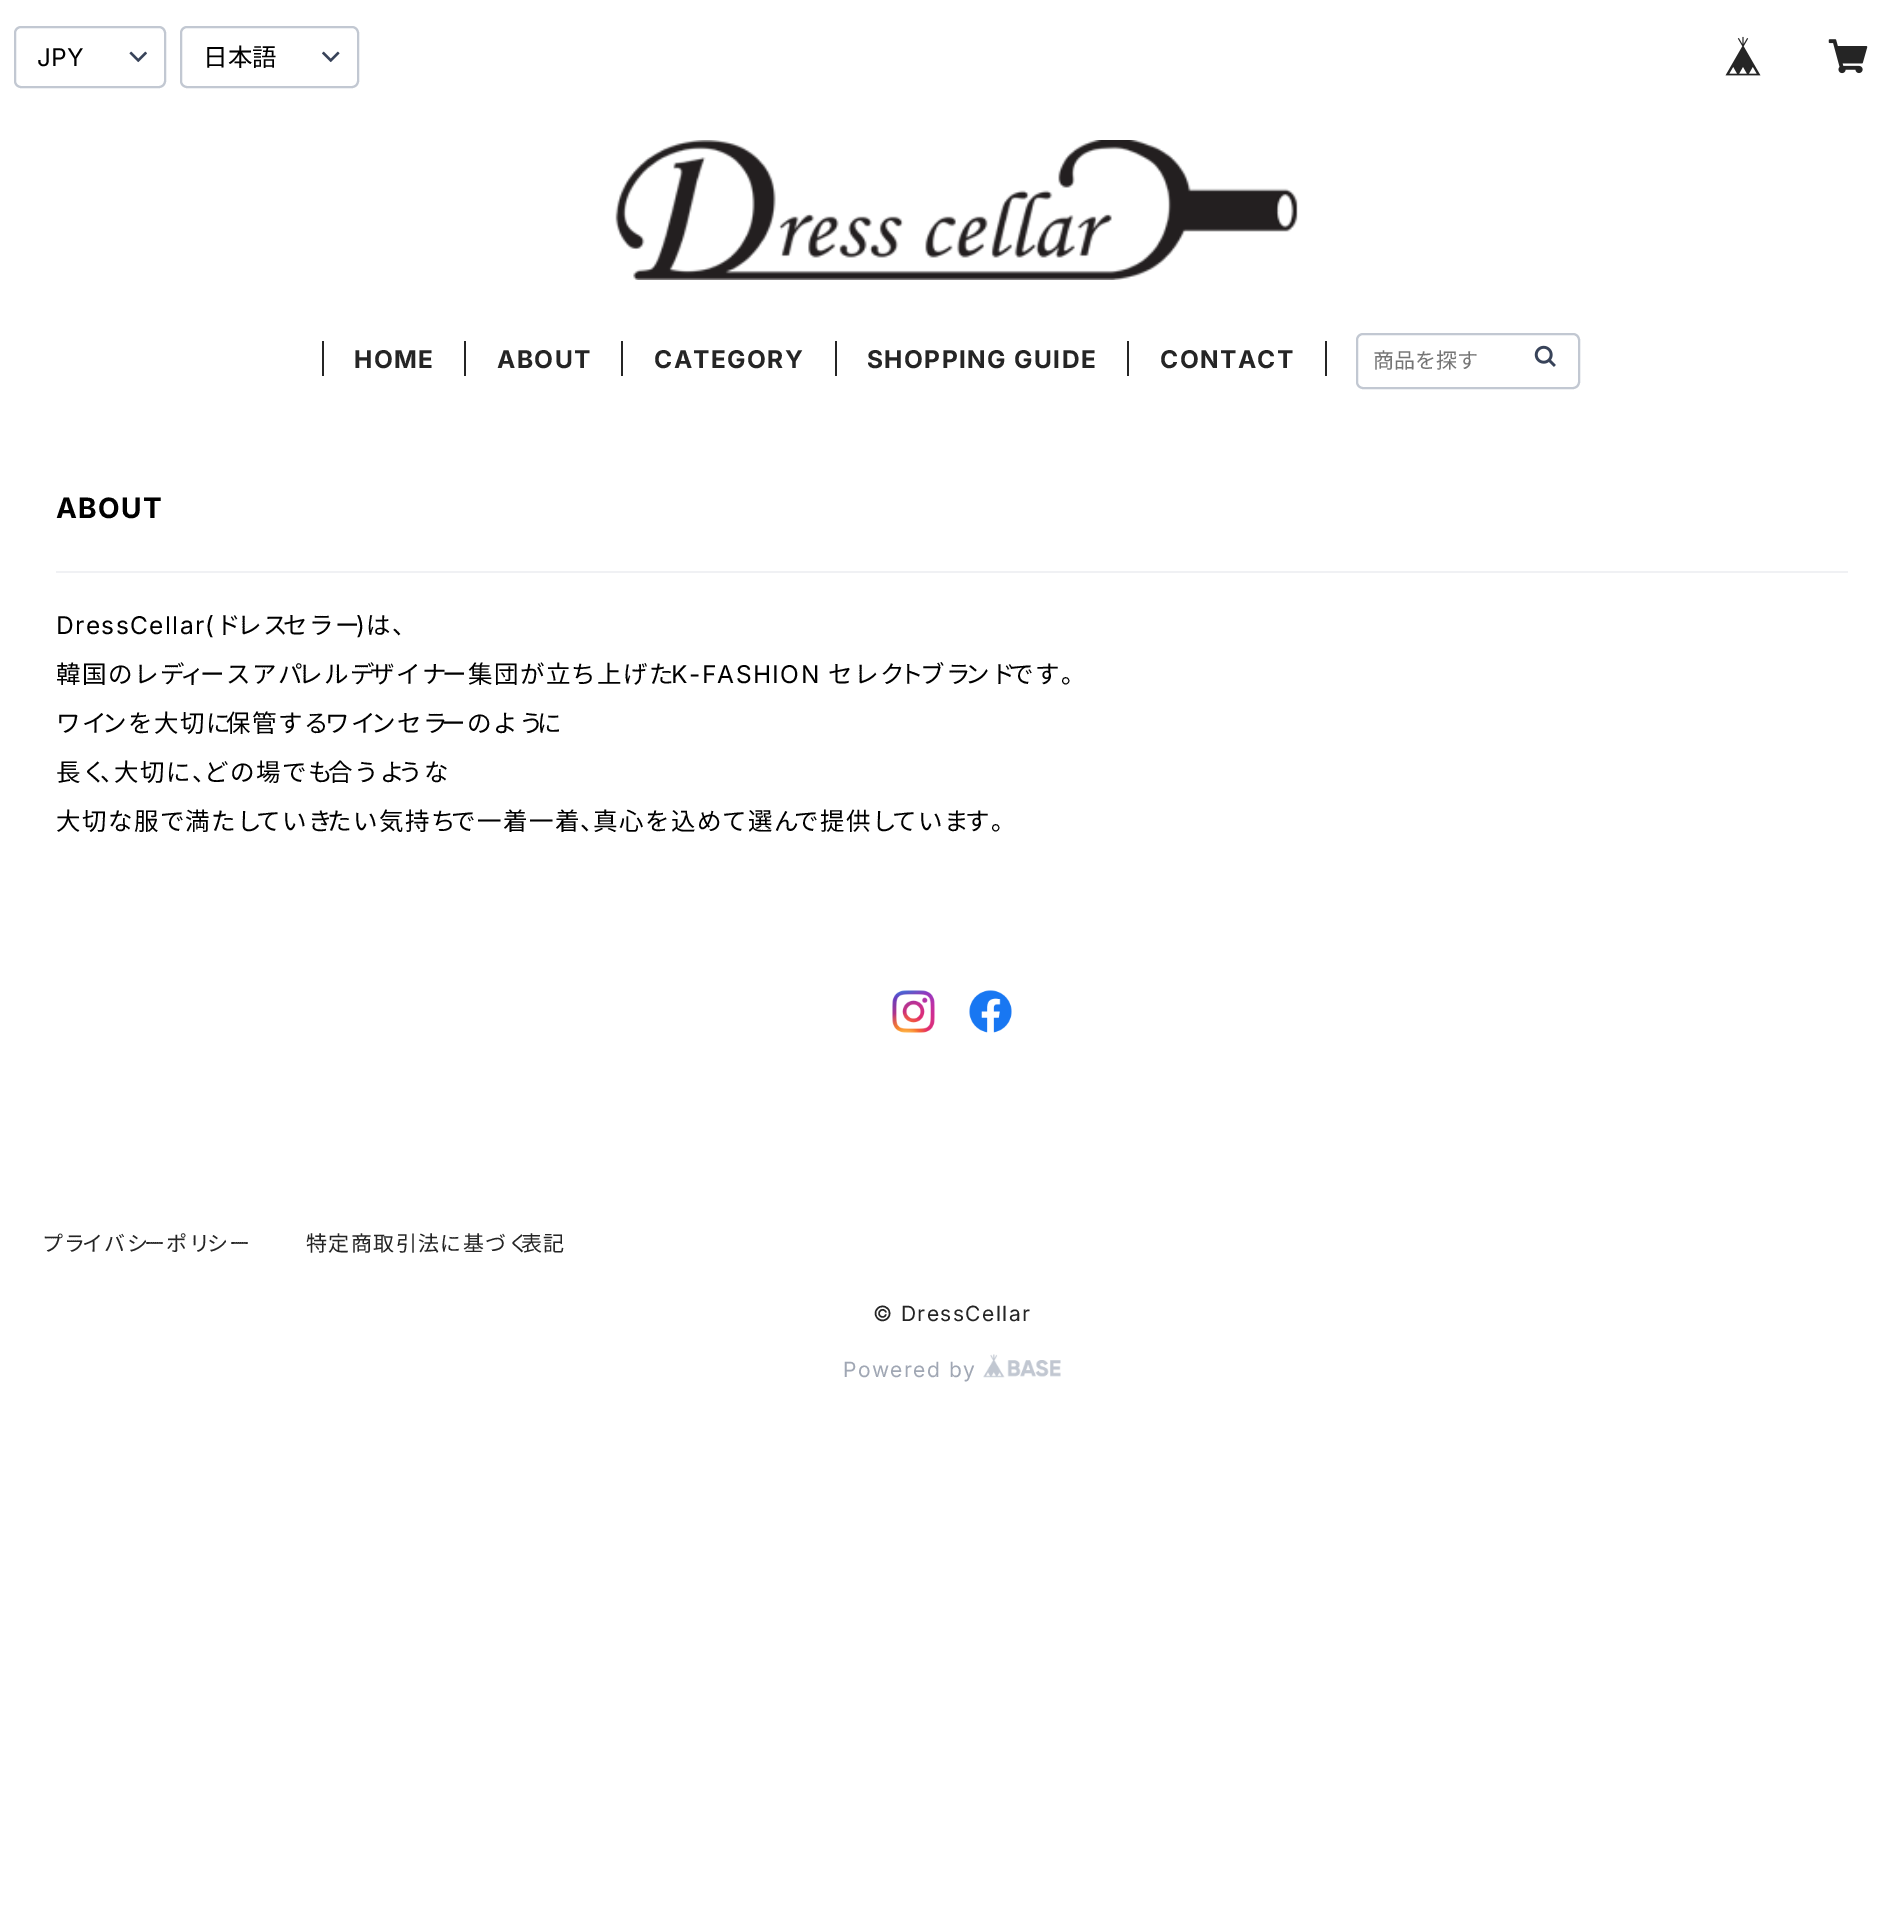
%!PS-Adobe-3.0
%%BoundingBox: 0 0 1903 1913
%%LanguageLevel: 3
%%Pages: 1
%%EndComments
%%BeginProlog
/setink { 3 { 255 div 3 1 roll } repeat setrgbcolor } def
/usefont { [ exch dup neg 0 0 3 -1 roll 0 0 ] selectfont } def
/drawtext { setink usefont moveto show } def
/fillbox { setink rectfill } def
/rrect { 5 dict begin { /r /h /w /y /x } { exch def } forall
  x r add y moveto x w add y 2 copy h add r arct x w add y h add x 1 index r arct
  x y h add x y r arct x y 2 copy exch w add exch r arct closepath end } def
/drawimage { 5 dict begin { /h /w /y /x /name } { exch def } forall
  gsave x y translate w h scale
  w h 8 [w 0 0 h 0 0] name (r) file false 3 colorimage grestore end } def
%%EndProlog
%%BeginSetup
<< /PageSize [1903 1913] >> setpagedevice
%%EndSetup
%%Page: 1 1
0 1913 translate 1 -1 scale
4 setmiterlimit
0 0 1903 1913 255 255 255 fillbox
194 200 210 setink
2 setlinewidth
15 27 150 60 6 rrect stroke
(JPY) 37 66 /Inter-Regular 24.5 0 0 0 drawtext
(assets/img1.rgb) 129 51 18 12 drawimage
194 200 210 setink
181 27 177 60 6 rrect stroke
(日本語) 203 66 /NotoSansJP-Regular 24.5 0 0 0 drawtext
(assets/img2.rgb) 322 51 18 12 drawimage
(assets/img3.rgb) 1725 36 36 40 drawimage
(assets/img4.rgb) 1828 39 40 35 drawimage
(assets/img5.rgb) 615 140 683 140 drawimage
464 341 2 35 37 37 37 fillbox
322 341 2 35 37 37 37 fillbox
/Inter-Bold 24.5 usefont
354 368 moveto 1.4 0 (HOME) ashow
621 341 2 35 37 37 37 fillbox
497 368 moveto 1.4 0 (ABOUT) ashow
835 341 2 35 37 37 37 fillbox
654 368 moveto 1.4 0 (CATEGORY) ashow
1127 341 2 35 37 37 37 fillbox
867 368 moveto 1.4 0 (SHOPPING GUIDE) ashow
1325 341 2 35 37 37 37 fillbox
1160 368 moveto 1.4 0 (CONTACT) ashow
194 200 210 setink
1357 334 222 54 6 rrect stroke
(商品を探す) 1373 368 /NotoSansJP-Regular 21 117 117 117 drawtext
(assets/img6.rgb) 1534 345 22 22 drawimage
56 571 1792 2 240 241 244 fillbox
/Inter-Bold 28 usefont
0 0 0 setink
56 518 moveto 1.4 0 (ABOUT) ashow
/Inter-Regular 24.5 usefont
56 634 moveto 1.4 0 (DressCellar\() ashow
/NotoSansJP-Regular 24.5 usefont
216 634 moveto 1.4 0 (ド) ashow
237 634 moveto 1.4 0 (レス) ashow
283 634 moveto 1.4 0 (セラー) ashow
/Inter-Regular 24.5 usefont
356 634 moveto 1.4 0 (\)) ashow
/NotoSansJP-Regular 24.5 usefont
366 634 moveto 1.4 0 (は、) ashow
56 683 moveto 1.4 0 (韓国のレデ) ashow
180 683 moveto 1.4 0 (ィ) ashow
200 683 moveto 1.4 0 (ースアパ) ashow
298 683 moveto 1.4 0 (レルデ) ashow
370 683 moveto 1.4 0 (ザイナ) ashow
442 683 moveto 1.4 0 (ー集団が立ち上げた) ashow
/Inter-Regular 24.5 usefont
671 683 moveto 1.4 0 (K-FASHION) ashow
/NotoSansJP-Regular 24.5 usefont
828 683 moveto 1.4 0 (セレク) ashow
899 683 moveto 1.4 0 (ト) ashow
920 683 moveto 1.4 0 (ブラ) ashow
965 683 moveto 1.4 0 (ンド) ashow
1009 683 moveto 1.4 0 (です。) ashow
56 732 moveto 1.4 0 (ワイ) ashow
102 732 moveto 1.4 0 (ンを大切に) ashow
226 732 moveto 1.4 0 (保管する) ashow
325 732 moveto 1.4 0 (ワイ) ashow
371 732 moveto 1.4 0 (ンセラ) ashow
441 732 moveto 1.4 0 (ーのよう) ashow
537 732 moveto 1.4 0 (に) ashow
56 781 moveto 1.4 0 (長く) ashow
100 781 moveto 1.4 0 (、) ashow
114 781 moveto 1.4 0 (大切に、) ashow
204 781 moveto 1.4 0 (どの場でも) ashow
328 781 moveto 1.4 0 (合うよ) ashow
398 781 moveto 1.4 0 (うな) ashow
56 830 moveto 1.4 0 (大切な服で満たし) ashow
256 830 moveto 1.4 0 (ていき) ashow
327 830 moveto 1.4 0 (たい気持ち) ashow
451 830 moveto 1.4 0 (で一着一着、) ashow
593 830 moveto 1.4 0 (真心を込めて選ん) ashow
794 830 moveto 1.4 0 (で提供し) ashow
892 830 moveto 1.4 0 (ていま) ashow
965 830 moveto 1.4 0 (す。) ashow
(assets/img7.rgb) 892 990 43 43 drawimage
(assets/img8.rgb) 969 990 43 43 drawimage
/NotoSansJP-Regular 21 usefont
37 37 37 setink
42 1251 moveto 1.4 0 (プラ) ashow
82 1251 moveto 1.4 0 (イバシ) ashow
144 1251 moveto 1.4 0 (ーポリ) ashow
207 1251 moveto 1.4 0 (シー) ashow
306 1251 moveto 1.4 0 (特定商取引法に基づく) ashow
521 1251 moveto 1.4 0 (表記) ashow
/Inter-Regular 21 usefont
873 1321 moveto 1.4 0 (© DressCellar) ashow
160 167 180 setink
843 1377 moveto 1.4 0 (Powered by) ashow
(assets/img9.rgb) 983 1354 78 24 drawimage
showpage
%%EOF
